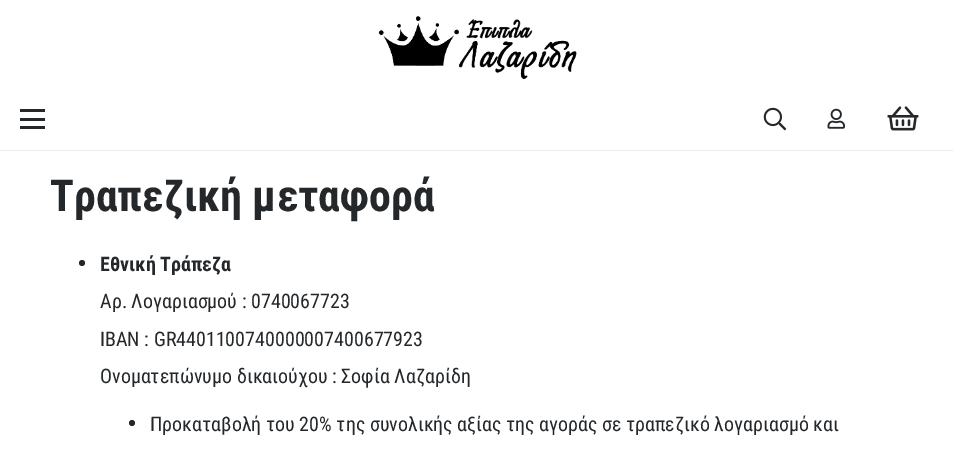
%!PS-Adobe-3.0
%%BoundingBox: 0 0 953 458
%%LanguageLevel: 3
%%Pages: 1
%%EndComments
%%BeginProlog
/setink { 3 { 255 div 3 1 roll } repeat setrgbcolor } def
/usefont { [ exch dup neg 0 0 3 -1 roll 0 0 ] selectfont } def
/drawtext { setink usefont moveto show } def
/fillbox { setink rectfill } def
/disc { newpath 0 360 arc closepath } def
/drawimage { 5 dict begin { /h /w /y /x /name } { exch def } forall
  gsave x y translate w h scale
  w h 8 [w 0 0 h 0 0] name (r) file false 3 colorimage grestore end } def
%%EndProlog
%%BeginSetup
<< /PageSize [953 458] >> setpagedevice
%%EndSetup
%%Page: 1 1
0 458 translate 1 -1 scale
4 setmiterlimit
0 0 953 458 255 255 255 fillbox
(assets/img1.rgb) 378 16 199 63 drawimage
235 235 235 setink
0 150 moveto 0 151 lineto 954 151 lineto 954 89 lineto 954 150 lineto closepath fill
20 118 25 3 37 40 43 fillbox
20 109 25 3 37 40 43 fillbox
20 126 25 3 37 40 43 fillbox
(assets/img2.rgb) 763 107 24 24 drawimage
(assets/img3.rgb) 827 108 18 21 drawimage
(assets/img4.rgb) 887 106 32 25 drawimage
(Τραπεζική μεταφορά) 50 211 /RobotoCondensed-Bold 44 37 40 43 drawtext
82 263 3 disc fill
(Εθνική Τράπεζα) 100 271 /RobotoCondensed-Bold 20 37 40 43 drawtext
(Αρ. Λογαριασμού : 0740067723) 100 308 /RobotoCondensed-Regular 20 37 40 43 drawtext
(IBAN : GR4401100740000007400677923) 100 346 /RobotoCondensed-Regular 20 37 40 43 drawtext
(Ονοματεπώνυμο δικαιούχου : Σοφία Λαζαρίδη) 100 383 /RobotoCondensed-Regular 20 37 40 43 drawtext
132 423 3 disc fill
(Προκαταβολή του 20% της συνολικής αξίας της αγοράς σε τραπεζικό λογαριασμό και) 150 431 /RobotoCondensed-Regular 20 37 40 43 drawtext
showpage
%%EOF
